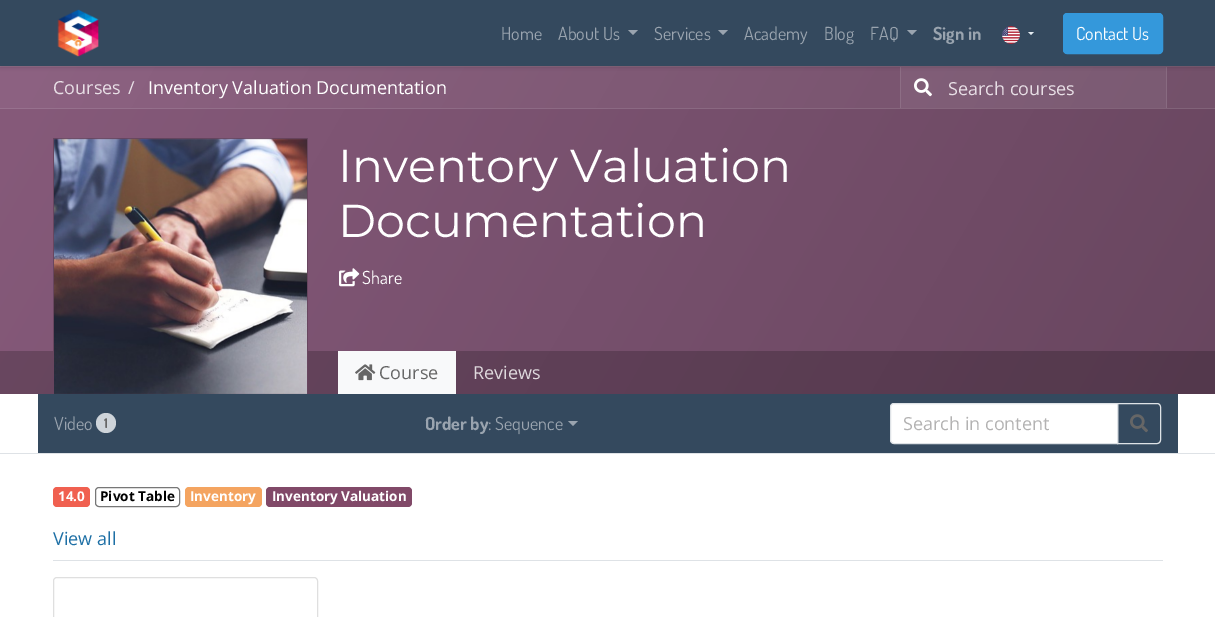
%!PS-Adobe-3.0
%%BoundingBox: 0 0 1215 617
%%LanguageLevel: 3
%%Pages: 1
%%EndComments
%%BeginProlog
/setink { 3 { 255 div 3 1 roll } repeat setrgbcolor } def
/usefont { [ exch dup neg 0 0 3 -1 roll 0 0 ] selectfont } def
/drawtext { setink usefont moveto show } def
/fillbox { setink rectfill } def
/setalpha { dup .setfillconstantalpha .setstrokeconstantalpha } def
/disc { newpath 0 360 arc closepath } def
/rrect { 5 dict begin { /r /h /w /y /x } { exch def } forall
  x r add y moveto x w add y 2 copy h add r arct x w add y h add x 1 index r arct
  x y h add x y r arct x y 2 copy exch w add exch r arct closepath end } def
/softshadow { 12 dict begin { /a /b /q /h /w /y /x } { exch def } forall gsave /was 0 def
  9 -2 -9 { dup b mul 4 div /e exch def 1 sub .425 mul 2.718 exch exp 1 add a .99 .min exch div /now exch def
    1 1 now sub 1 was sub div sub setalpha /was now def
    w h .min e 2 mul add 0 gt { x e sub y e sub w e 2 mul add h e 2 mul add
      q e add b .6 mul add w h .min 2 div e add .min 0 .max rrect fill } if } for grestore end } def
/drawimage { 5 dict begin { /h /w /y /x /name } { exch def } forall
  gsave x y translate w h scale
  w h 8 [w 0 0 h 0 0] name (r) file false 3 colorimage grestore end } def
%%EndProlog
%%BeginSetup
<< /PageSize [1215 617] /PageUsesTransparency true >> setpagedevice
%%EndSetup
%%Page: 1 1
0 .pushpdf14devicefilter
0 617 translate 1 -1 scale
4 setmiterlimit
0 0 1215 617 255 255 255 fillbox
gsave 0 67 moveto 1215 67 lineto 1215 108 lineto 0 108 lineto closepath clip newpath
<< /ShadingType 2 /ColorSpace /DeviceRGB /Coords [81 -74 1134 534] /Extend [true true] /Function << /FunctionType 2 /Domain [0 1] /C0 [0.553 0.384 0.51] /C1 [0.439 0.31 0.404] /N 1 >> >> shfill grestore
gsave 901 67 moveto 1166 67 lineto 1166 108 lineto 901 108 lineto closepath clip newpath
<< /ShadingType 2 /ColorSpace /DeviceRGB /Coords [81 -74 1134 534] /Extend [true true] /Function << /FunctionType 2 /Domain [0 1] /C0 [0.576 0.416 0.533] /C1 [0.467 0.345 0.435] /N 1 >> >> shfill grestore
gsave 0 66 moveto 1215 66 lineto 1215 67 lineto 0 67 lineto closepath clip newpath
<< /ShadingType 2 /ColorSpace /DeviceRGB /Coords [81 -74 1134 534] /Extend [true true] /Function << /FunctionType 2 /Domain [0 1] /C0 [0.596 0.447 0.561] /C1 [0.494 0.38 0.463] /N 1 >> >> shfill grestore
1166 67 1 41 136 107 129 fillbox
900 67 1 41 141 110 133 fillbox
0 0 0 setink
0 0 1215 66 0 2.5 0.25 softshadow
0 0 1215 66 52 73 94 fillbox
(assets/img1.rgb) 57 9 42 48 drawimage
(Home) 501 40 /Dosis-Regular 18 154 164 175 drawtext
(About Us) 558 40 /Dosis-Regular 18 154 164 175 drawtext
628 30 moveto 638 30 lineto 633 35 lineto closepath fill
(Services) 654 40 /Dosis-Regular 18 154 164 175 drawtext
718 30 moveto 728 30 lineto 723 35 lineto closepath fill
(Academy) 744 40 /Dosis-Regular 18 154 164 175 drawtext
(Blog) 824 40 /Dosis-Regular 18 154 164 175 drawtext
(FAQ) 870 40 /Dosis-Regular 18 154 164 175 drawtext
907 30 moveto 917 30 lineto 912 35 lineto closepath fill
(Sign in) 933 40 /Dosis-Bold 18 154 164 175 drawtext
(assets/img2.rgb) 1002 26 18 18 drawimage
229 237 242 setink
1028 32 moveto 1034 32 lineto 1031 35 lineto closepath fill
52 152 219 setink
1063.5 13.5 99 40 3.5 rrect gsave fill grestore
stroke
(Contact Us) 1076 40 /Dosis-Regular 18 255 255 255 drawtext
gsave 0 109 moveto 1215 109 lineto 1215 394 lineto 0 394 lineto closepath clip newpath
<< /ShadingType 2 /ColorSpace /DeviceRGB /Coords [81 -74 1134 534] /Extend [true true] /Function << /FunctionType 2 /Domain [0 1] /C0 [0.529 0.353 0.482] /C1 [0.408 0.275 0.373] /N 1 >> >> shfill grestore
gsave 0 108 moveto 1215 108 lineto 1215 109 lineto 0 109 lineto closepath clip newpath
<< /ShadingType 2 /ColorSpace /DeviceRGB /Coords [81 -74 1134 534] /Extend [true true] /Function << /FunctionType 2 /Domain [0 1] /C0 [0.596 0.447 0.561] /C1 [0.494 0.38 0.463] /N 1 >> >> shfill grestore
(Courses) 53 94 /OpenSans-Regular 18 232 223 230 drawtext
(/) 128 94 /OpenSans-Regular 18 232 223 230 drawtext
(Inventory Valuation Documentation) 148 94 /OpenSans-Regular 18 255 255 255 drawtext
(assets/img3.rgb) 914 78 18 19 drawimage
(Search courses) 948 95 /OpenSans-Regular 18 232 223 230 drawtext
53 138 255 1 104 70 95 fillbox
0.2 setalpha
0 351 1215 43 0 0 0 fillbox
1 setalpha
307 138 1 256 104 70 95 fillbox
53 138 1 213 104 70 95 fillbox
(assets/img4.rgb) 54 138 253 256 drawimage
(Inventory Valuation) 338 182 /Montserrat-Regular 46.1 255 255 255 drawtext
(Documentation) 338 237 /Montserrat-Regular 46.1 255 255 255 drawtext
(assets/img5.rgb) 339 268 21 19 drawimage
(Share) 362 284 /Dosis-Regular 18 255 255 255 drawtext
338 351 118 43 248 249 250 fillbox
(assets/img6.rgb) 355 364 21 17 drawimage
(Course) 379 379 /OpenSans-Regular 18 102 102 102 drawtext
(Reviews) 473 379 /OpenSans-Regular 18 223 217 221 drawtext
0 453 1215 1 222 226 230 fillbox
38 394 1140 59 52 73 94 fillbox
(Video) 54 430 /Dosis-Regular 18 154 164 175 drawtext
206 212 218 setink
106 423 10 disc fill
(1) 104 428 /Dosis-Bold 13.5 102 102 102 drawtext
(Order by) 425 430 /Dosis-Bold 18 154 164 175 drawtext
(: Sequence) 488 430 /Dosis-Regular 18 154 164 175 drawtext
568 421 moveto 578 421 lineto 573 426 lineto closepath fill
255 255 255 setink
894 403.5 moveto 1117.5 403.5 lineto 1117.5 443.5 lineto 894 443.5 lineto 892 443.5 890.5 442 890.5 440 curveto 890.5 407 lineto 890.5 405 892 403.5 894 403.5 curveto closepath gsave fill grestore
222 226 230 setink
stroke
(Search in content) 903 430 /OpenSans-Regular 18 179 178 178 drawtext
222 226 230 setink
1117.5 403.5 moveto 1157 403.5 lineto 1159 403.5 1160.5 405 1160.5 407 curveto 1160.5 440 lineto 1160.5 442 1159 443.5 1157 443.5 curveto 1117.5 443.5 lineto closepath stroke
(assets/img7.rgb) 1130 414 18 19 drawimage
240 96 80 setink
53 487 37 20 4 rrect fill
(14.0) 58 501 /OpenSans-Bold 13.5 255 255 255 drawtext
119 119 119 setink
95.5 487.5 84 19 3.5 rrect stroke
(Pivot Table) 100 501 /OpenSans-Bold 13.5 0 0 0 drawtext
244 164 96 setink
185 487 77 20 4 rrect fill
(Inventory) 190 501 /OpenSans-Bold 13.5 255 255 255 drawtext
129 73 104 setink
266 487 146 20 4 rrect fill
(Inventory Valuation) 272 501 /OpenSans-Bold 13.5 255 255 255 drawtext
53 560 1110 1 222 226 230 fillbox
(View all) 53 545 /OpenSans-Regular 18 29 111 165 drawtext
223 223 223 setink
53.5 577.5 264 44 3.5 rrect stroke
.poppdf14devicefilter showpage
%%EOF
